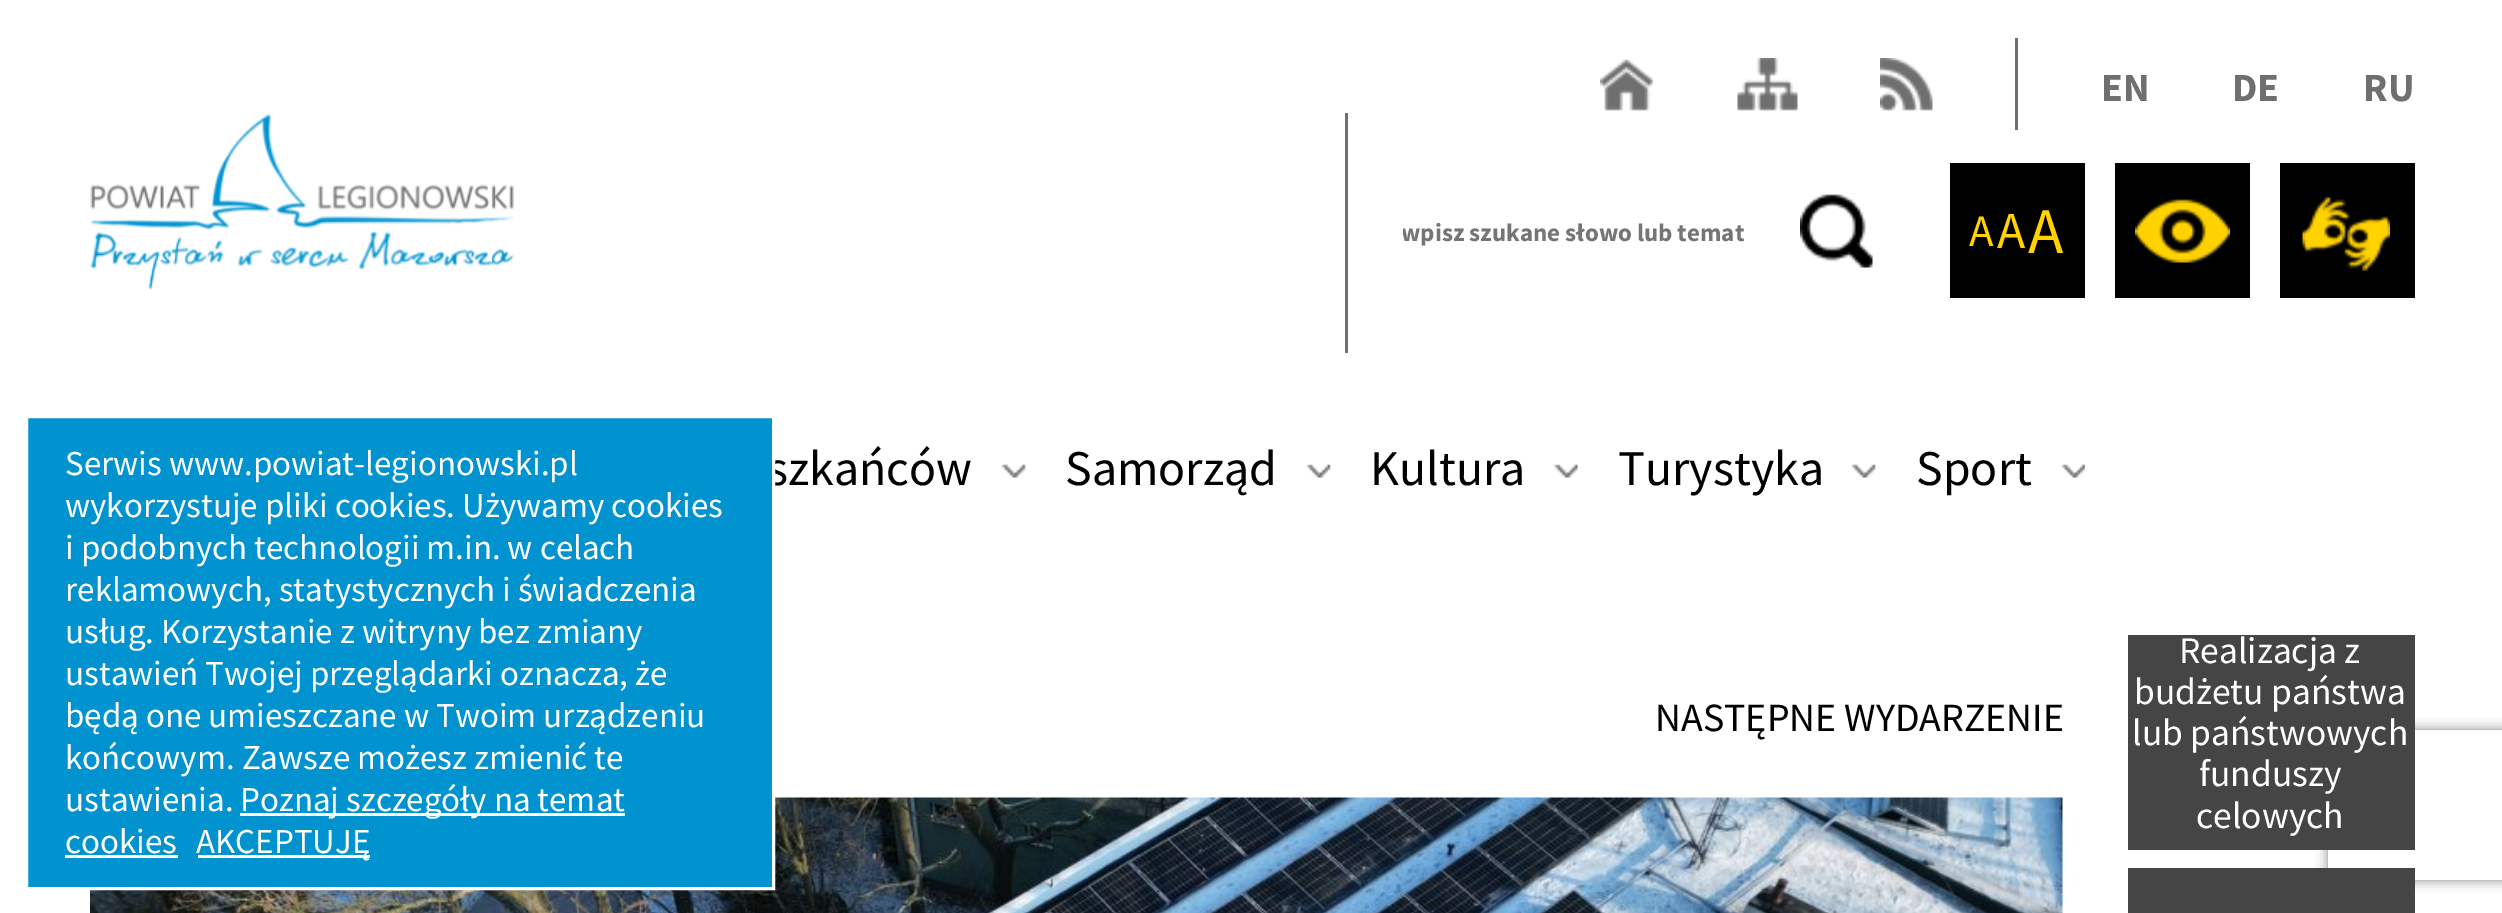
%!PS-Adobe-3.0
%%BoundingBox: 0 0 2502 913
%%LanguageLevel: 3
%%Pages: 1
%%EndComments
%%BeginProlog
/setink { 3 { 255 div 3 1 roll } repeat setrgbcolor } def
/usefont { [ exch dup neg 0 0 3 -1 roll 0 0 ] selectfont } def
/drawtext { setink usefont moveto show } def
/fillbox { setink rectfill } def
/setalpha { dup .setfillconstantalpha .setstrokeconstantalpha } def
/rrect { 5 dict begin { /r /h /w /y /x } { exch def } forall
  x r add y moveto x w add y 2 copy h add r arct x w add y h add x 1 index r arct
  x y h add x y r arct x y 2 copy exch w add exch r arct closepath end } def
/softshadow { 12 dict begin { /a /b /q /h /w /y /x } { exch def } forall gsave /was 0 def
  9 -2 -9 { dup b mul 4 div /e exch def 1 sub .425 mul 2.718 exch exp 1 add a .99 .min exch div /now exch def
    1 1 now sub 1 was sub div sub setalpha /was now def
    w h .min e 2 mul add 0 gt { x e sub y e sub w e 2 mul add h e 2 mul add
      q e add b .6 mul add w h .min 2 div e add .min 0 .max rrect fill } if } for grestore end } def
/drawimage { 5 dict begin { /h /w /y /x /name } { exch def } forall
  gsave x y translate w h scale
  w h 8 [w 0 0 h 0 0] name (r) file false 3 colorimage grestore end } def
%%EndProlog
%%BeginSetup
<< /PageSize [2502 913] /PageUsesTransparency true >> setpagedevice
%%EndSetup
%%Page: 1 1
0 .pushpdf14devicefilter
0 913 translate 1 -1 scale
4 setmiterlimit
0 0 2502 913 255 255 255 fillbox
(assets/img1.rgb) 1600 59 53 52 drawimage
(assets/img2.rgb) 1737 58 61 53 drawimage
(assets/img3.rgb) 1880 58 53 53 drawimage
2015 38 3 92 111 111 111 fillbox
(EN) 2101 101 /SourceSansPro-Bold 40 111 111 111 drawtext
(DE) 2232 101 /SourceSansPro-Bold 40 111 111 111 drawtext
(RU) 2363 101 /SourceSansPro-Bold 40 111 111 111 drawtext
(assets/img4.rgb) 90 114 424 176 drawimage
1345 113 3 240 111 111 111 fillbox
gsave
1403 218 422 32 rectclip
(wpisz szukane słowo lub temat) 1401 241 /SourceSansPro-Bold 25 117 117 117 drawtext
grestore
(assets/img5.rgb) 1800 194 73 74 drawimage
1950 163 135 135 0 0 0 fillbox
(A) 1969 246 /SourceSansPro-Regular 45 255 210 0 drawtext
(A) 1997 248 /SourceSansPro-Regular 52 255 210 0 drawtext
(A) 2028 253 /SourceSansPro-Regular 65 255 210 0 drawtext
2115 163 135 135 0 0 0 fillbox
(assets/img6.rgb) 2135 199 95 64 drawimage
2280 163 135 135 0 0 0 fillbox
(assets/img7.rgb) 2302 197 88 74 drawimage
(szkańców) 767 485 /SourceSansPro-Regular 50 0 0 0 drawtext
(assets/img8.rgb) 1001 464 25 14 drawimage
(Samorząd) 1065 485 /SourceSansPro-Regular 50 0 0 0 drawtext
(assets/img9.rgb) 1306 464 25 14 drawimage
(Kultura) 1370 485 /SourceSansPro-Regular 50 0 0 0 drawtext
(assets/img10.rgb) 1554 464 24 14 drawimage
(Turystyka) 1618 485 /SourceSansPro-Regular 50 0 0 0 drawtext
(assets/img8.rgb) 1851 464 25 14 drawimage
(Sport) 1916 485 /SourceSansPro-Regular 50 0 0 0 drawtext
(assets/img11.rgb) 2061 464 24 14 drawimage
(assets/img12.rgb) 90 797 1973 116 drawimage
0 147 208 setink
26.5 416.5 moveto 773.5 416.5 lineto 773.5 888.5 lineto 26.5 888.5 lineto closepath gsave fill grestore
255 255 255 setink
3 setlinewidth
stroke
(Serwis www.powiat-legionowski.pl) 65 475 /SourceSansPro-Regular 35 255 255 255 drawtext
(wykorzystuje pliki cookies. Używamy cookies) 65 517 /SourceSansPro-Regular 35 255 255 255 drawtext
(i podobnych technologii m.in. w celach) 65 559 /SourceSansPro-Regular 35 255 255 255 drawtext
(reklamowych, statystycznych i świadczenia) 65 601 /SourceSansPro-Regular 35 255 255 255 drawtext
(usług. Korzystanie z witryny bez zmiany) 65 643 /SourceSansPro-Regular 35 255 255 255 drawtext
(ustawień Twojej przeglądarki oznacza, że) 65 685 /SourceSansPro-Regular 35 255 255 255 drawtext
(będą one umieszczane w Twoim urządzeniu) 65 727 /SourceSansPro-Regular 35 255 255 255 drawtext
(końcowym. Zawsze możesz zmienić te) 65 769 /SourceSansPro-Regular 35 255 255 255 drawtext
(ustawienia.) 65 811 /SourceSansPro-Regular 35 255 255 255 drawtext
240 813 385 3 255 255 255 fillbox
(Poznaj szczegóły na temat) 240 811 /SourceSansPro-Regular 35 255 255 255 drawtext
(cookies) 65 853 /SourceSansPro-Regular 35 255 255 255 drawtext
65 855 113 3 255 255 255 fillbox
198 855 172 3 255 255 255 fillbox
(AKCEPTUJĘ) 196 853 /SourceSansPro-Regular 35 255 255 255 drawtext
(NASTĘPNE WYDARZENIE) 1655 731 /SourceSansPro-Regular 40 0 0 0 drawtext
gsave
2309 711 moveto 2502 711 lineto 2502 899 lineto 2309 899 lineto closepath 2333 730 moveto 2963 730 lineto 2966 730 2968 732 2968 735 curveto 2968 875 lineto 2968 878 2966 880 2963 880 curveto 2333 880 lineto 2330 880 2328 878 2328 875 curveto 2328 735 lineto 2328 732 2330 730 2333 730 curveto closepath eoclip newpath
128 128 128 setink
2328 730 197 150 5 6 1 softshadow
grestore
2128 635 287 215 69 69 69 fillbox
(Realizacja z) 2179 663 /SourceSansPro-Regular 37.5 255 255 255 drawtext
(budżetu państwa) 2134 704 /SourceSansPro-Regular 37.5 255 255 255 drawtext
(lub państwowych) 2132 745 /SourceSansPro-Regular 37.5 255 255 255 drawtext
(funduszy) 2199 786 /SourceSansPro-Regular 37.5 255 255 255 drawtext
(celowych) 2196 828 /SourceSansPro-Regular 37.5 255 255 255 drawtext
2128 868 287 45 69 69 69 fillbox
.poppdf14devicefilter showpage
%%EOF
